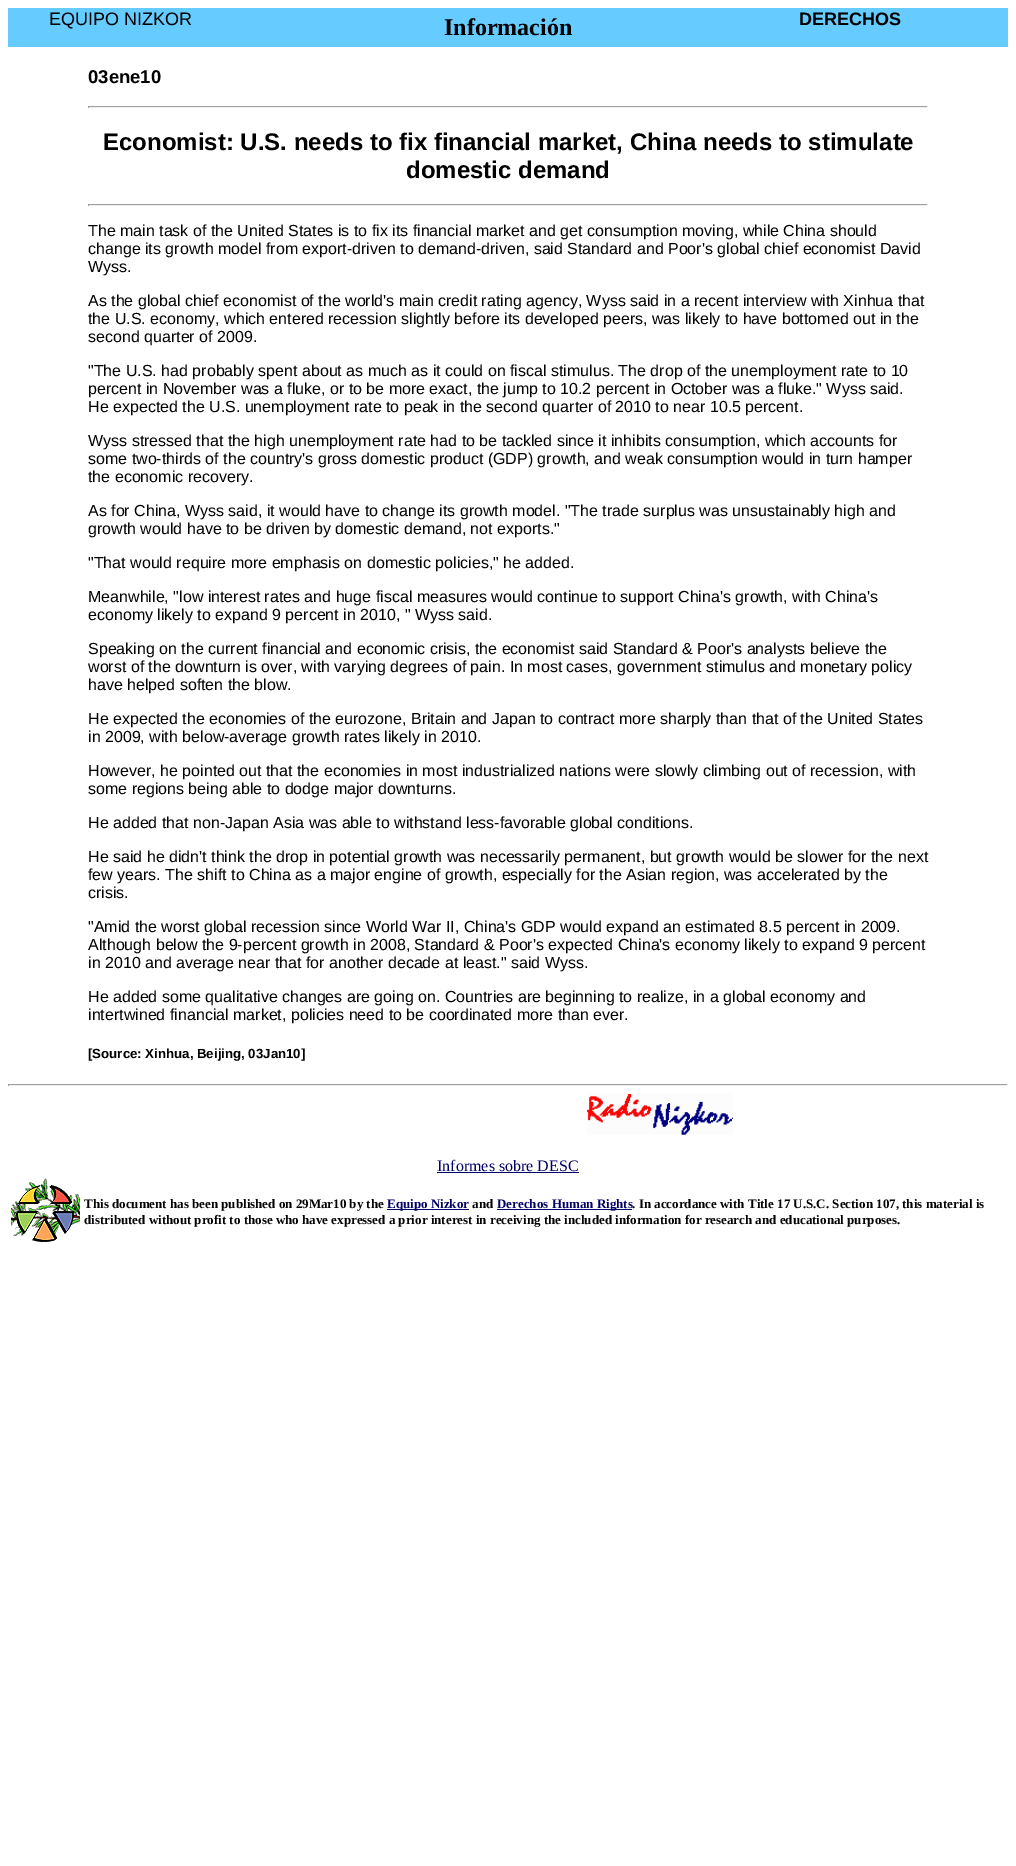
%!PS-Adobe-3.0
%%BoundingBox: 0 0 1016 1866
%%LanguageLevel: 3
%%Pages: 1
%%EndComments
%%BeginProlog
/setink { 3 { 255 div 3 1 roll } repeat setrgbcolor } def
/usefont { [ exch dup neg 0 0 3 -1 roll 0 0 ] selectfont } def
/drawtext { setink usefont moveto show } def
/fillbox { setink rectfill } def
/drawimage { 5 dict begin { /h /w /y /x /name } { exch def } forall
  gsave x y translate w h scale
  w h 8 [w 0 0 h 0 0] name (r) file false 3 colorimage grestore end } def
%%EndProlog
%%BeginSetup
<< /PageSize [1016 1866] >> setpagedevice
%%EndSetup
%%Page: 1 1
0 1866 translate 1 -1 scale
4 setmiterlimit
0 0 1016 1866 255 255 255 fillbox
8 8 1000 39 102 204 255 fillbox
(EQUIPO NIZKOR) 49 25 /LiberationSans-Regular 18 0 0 0 drawtext
(Información) 444 35 /LiberationSerif-Bold 24 0 0 0 drawtext
(DERECHOS) 799 25 /LiberationSans-Bold 18 0 0 0 drawtext
(03ene10) 88 83 /LiberationSans-Bold 18.5 0 0 0 drawtext
88 106 840 1 159 159 159 fillbox
927 106 1 2 238 238 238 fillbox
88 107 840 1 238 238 238 fillbox
88 106 1 2 159 159 159 fillbox
(Economist: U.S. needs to fix financial market, China needs to stimulate) 103 150 /LiberationSans-Bold 24 0 0 0 drawtext
(domestic demand) 406 178 /LiberationSans-Bold 24 0 0 0 drawtext
88 204 840 1 159 159 159 fillbox
927 204 1 2 238 238 238 fillbox
88 205 840 1 238 238 238 fillbox
88 204 1 2 159 159 159 fillbox
(The main task of the United States is to fix its financial market and get consumption moving, while China should) 88 236 /LiberationSans-Regular 16 0 0 0 drawtext
(change its growth model from export-driven to demand-driven, said Standard and Poor's global chief economist David) 88 254 /LiberationSans-Regular 16 0 0 0 drawtext
(Wyss.) 88 272 /LiberationSans-Regular 16 0 0 0 drawtext
(As the global chief economist of the world's main credit rating agency, Wyss said in a recent interview with Xinhua that) 88 306 /LiberationSans-Regular 16 0 0 0 drawtext
(the U.S. economy, which entered recession slightly before its developed peers, was likely to have bottomed out in the) 88 324 /LiberationSans-Regular 16 0 0 0 drawtext
(second quarter of 2009.) 88 342 /LiberationSans-Regular 16 0 0 0 drawtext
("The U.S. had probably spent about as much as it could on fiscal stimulus. The drop of the unemployment rate to 10) 88 376 /LiberationSans-Regular 16 0 0 0 drawtext
(percent in November was a fluke, or to be more exact, the jump to 10.2 percent in October was a fluke." Wyss said.) 88 394 /LiberationSans-Regular 16 0 0 0 drawtext
(He expected the U.S. unemployment rate to peak in the second quarter of 2010 to near 10.5 percent.) 88 412 /LiberationSans-Regular 16 0 0 0 drawtext
(Wyss stressed that the high unemployment rate had to be tackled since it inhibits consumption, which accounts for) 88 446 /LiberationSans-Regular 16 0 0 0 drawtext
(some two-thirds of the country's gross domestic product \(GDP\) growth, and weak consumption would in turn hamper) 88 464 /LiberationSans-Regular 16 0 0 0 drawtext
(the economic recovery.) 88 482 /LiberationSans-Regular 16 0 0 0 drawtext
(As for China, Wyss said, it would have to change its growth model. "The trade surplus was unsustainably high and) 88 516 /LiberationSans-Regular 16 0 0 0 drawtext
(growth would have to be driven by domestic demand, not exports.") 88 534 /LiberationSans-Regular 16 0 0 0 drawtext
("That would require more emphasis on domestic policies," he added.) 88 568 /LiberationSans-Regular 16 0 0 0 drawtext
(Meanwhile, "low interest rates and huge fiscal measures would continue to support China's growth, with China's) 88 602 /LiberationSans-Regular 16 0 0 0 drawtext
(economy likely to expand 9 percent in 2010, " Wyss said.) 88 620 /LiberationSans-Regular 16 0 0 0 drawtext
(Speaking on the current financial and economic crisis, the economist said Standard & Poor's analysts believe the) 88 654 /LiberationSans-Regular 16 0 0 0 drawtext
(worst of the downturn is over, with varying degrees of pain. In most cases, government stimulus and monetary policy) 88 672 /LiberationSans-Regular 16 0 0 0 drawtext
(have helped soften the blow.) 88 690 /LiberationSans-Regular 16 0 0 0 drawtext
(He expected the economies of the eurozone, Britain and Japan to contract more sharply than that of the United States) 88 724 /LiberationSans-Regular 16 0 0 0 drawtext
(in 2009, with below-average growth rates likely in 2010.) 88 742 /LiberationSans-Regular 16 0 0 0 drawtext
(However, he pointed out that the economies in most industrialized nations were slowly climbing out of recession, with) 88 776 /LiberationSans-Regular 16 0 0 0 drawtext
(some regions being able to dodge major downturns.) 88 794 /LiberationSans-Regular 16 0 0 0 drawtext
(He added that non-Japan Asia was able to withstand less-favorable global conditions.) 88 828 /LiberationSans-Regular 16 0 0 0 drawtext
(He said he didn't think the drop in potential growth was necessarily permanent, but growth would be slower for the next) 88 862 /LiberationSans-Regular 16 0 0 0 drawtext
(few years. The shift to China as a major engine of growth, especially for the Asian region, was accelerated by the) 88 880 /LiberationSans-Regular 16 0 0 0 drawtext
(crisis.) 88 898 /LiberationSans-Regular 16 0 0 0 drawtext
("Amid the worst global recession since World War II, China's GDP would expand an estimated 8.5 percent in 2009.) 88 932 /LiberationSans-Regular 16 0 0 0 drawtext
(Although below the 9-percent growth in 2008, Standard & Poor's expected China's economy likely to expand 9 percent) 88 950 /LiberationSans-Regular 16 0 0 0 drawtext
(in 2010 and average near that for another decade at least." said Wyss.) 88 968 /LiberationSans-Regular 16 0 0 0 drawtext
(He added some qualitative changes are going on. Countries are beginning to realize, in a global economy and) 88 1002 /LiberationSans-Regular 16 0 0 0 drawtext
(intertwined financial market, policies need to be coordinated more than ever.) 88 1020 /LiberationSans-Regular 16 0 0 0 drawtext
([Source: Xinhua, Beijing, 03Jan10]) 88 1058 /LiberationSans-Bold 13.25 0 0 0 drawtext
8 1084 1000 1 159 159 159 fillbox
1007 1084 1 2 238 238 238 fillbox
8 1085 1000 1 238 238 238 fillbox
8 1084 1 2 159 159 159 fillbox
(assets/img1.rgb) 587 1094 146 41 drawimage
(Informes sobre DESC) 437 1171 /LiberationSerif-Regular 16 0 0 102 drawtext
437 1172 142 1 0 0 102 fillbox
(assets/img2.rgb) 11 1178 69 64 drawimage
(This document has been published on 29Mar10 by the) 84 1208 /LiberationSerif-Bold 13 0 0 0 drawtext
387 1209 82 1 0 0 102 fillbox
(Equipo Nizkor) 387 1208 /LiberationSerif-Bold 13 0 0 102 drawtext
(and) 472 1208 /LiberationSerif-Bold 13 0 0 0 drawtext
497 1209 135 1 0 0 102 fillbox
(Derechos Human Rights) 497 1208 /LiberationSerif-Bold 13 0 0 102 drawtext
(. In accordance with Title 17 U.S.C. Section 107, this material is) 632 1208 /LiberationSerif-Bold 13 0 0 0 drawtext
(distributed without profit to those who have expressed a prior interest in receiving the included information for research and educational purposes.) 84 1224 /LiberationSerif-Bold 13 0 0 0 drawtext
showpage
%%EOF
